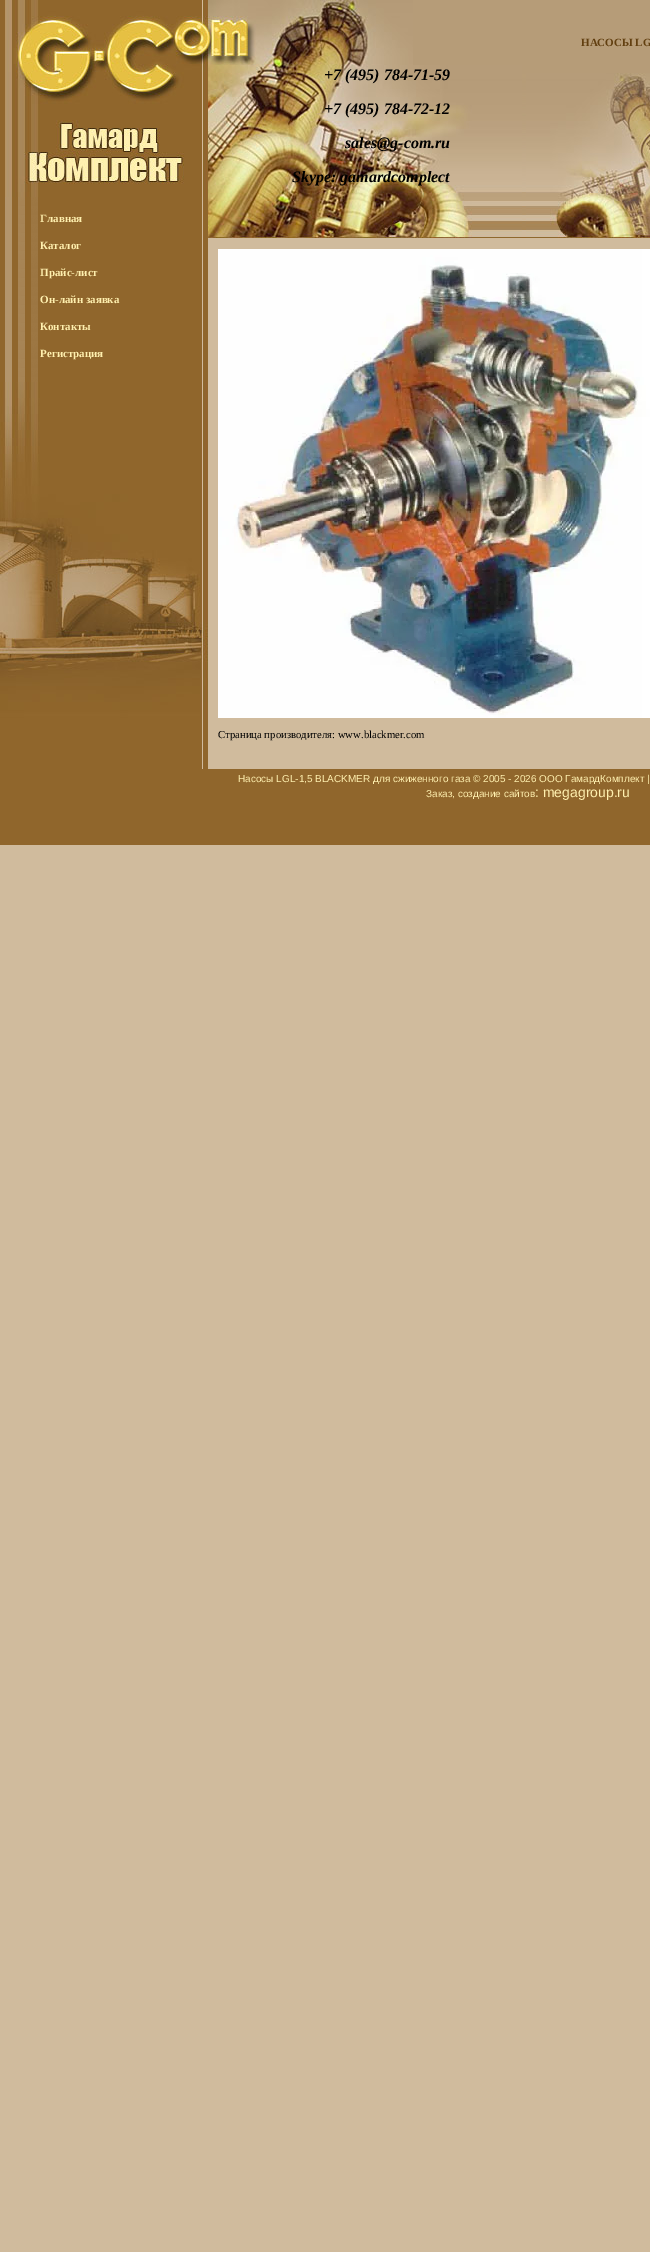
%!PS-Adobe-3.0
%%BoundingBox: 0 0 650 2252
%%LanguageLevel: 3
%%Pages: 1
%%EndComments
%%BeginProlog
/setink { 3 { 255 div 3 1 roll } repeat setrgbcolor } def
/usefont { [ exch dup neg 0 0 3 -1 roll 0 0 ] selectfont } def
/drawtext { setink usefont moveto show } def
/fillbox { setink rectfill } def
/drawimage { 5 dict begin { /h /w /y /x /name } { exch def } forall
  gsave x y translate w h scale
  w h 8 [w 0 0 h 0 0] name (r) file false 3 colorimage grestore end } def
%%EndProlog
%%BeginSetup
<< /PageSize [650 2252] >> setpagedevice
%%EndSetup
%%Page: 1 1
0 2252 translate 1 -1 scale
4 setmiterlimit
0 0 650 2252 208 187 157 fillbox
(assets/img1.rgb) 0 0 208 769 drawimage
(assets/img2.rgb) 5 0 203 197 drawimage
(assets/img3.rgb) 5 197 33 185 drawimage
(Главная) 40 222 /LiberationSerif-Bold 11 255 240 175 drawtext
(Каталог) 40 249 /LiberationSerif-Bold 11 255 240 175 drawtext
(Прайс-лист) 40 276 /LiberationSerif-Bold 11 255 240 175 drawtext
(Он-лайн заявка) 40 303 /LiberationSerif-Bold 11 255 240 175 drawtext
(Контакты) 40 330 /LiberationSerif-Bold 11 255 240 175 drawtext
(Регистрация) 40 357 /LiberationSerif-Bold 11 255 240 175 drawtext
(assets/img4.rgb) 0 382 208 337 drawimage
413 0 237 65 182 156 120 fillbox
(assets/img5.rgb) 208 0 205 65 drawimage
(НАСОСЫ LG) 581 46 /LiberationSerif-Bold 11 98 63 16 drawtext
(assets/img6.rgb) 522 65 128 173 drawimage
(assets/img7.rgb) 208 65 314 173 drawimage
(assets/img8.rgb) 526 73 124 165 drawimage
(assets/img9.rgb) 218 249 432 469 drawimage
(Страница производителя: www.blackmer.com) 218 738 /LiberationSerif-Regular 10.7 0 0 0 drawtext
(+7 \(495\) 784-71-59) 324 80 /LiberationSerif-BoldItalic 16 0 0 0 drawtext
(+7 \(495\) 784-72-12) 324 114 /LiberationSerif-BoldItalic 16 0 0 0 drawtext
(sales@g-com.ru) 345 148 /LiberationSerif-BoldItalic 16 0 0 0 drawtext
(Skype: gamardcomplect) 292 182 /LiberationSerif-BoldItalic 16 0 0 0 drawtext
0 769 650 76 144 102 44 fillbox
(Насосы LGL-1,5 BLACKMER для сжиженного газа © 2005 - 2026 ООО ГамардКомплект |) 238 782 /LiberationSans-Regular 10 255 240 175 drawtext
(Заказ, создание сайтов) 426 797 /LiberationSans-Regular 10 255 240 175 drawtext
(: megagroup.ru) 535 797 /LiberationSans-Regular 14 255 240 175 drawtext
showpage
%%EOF
